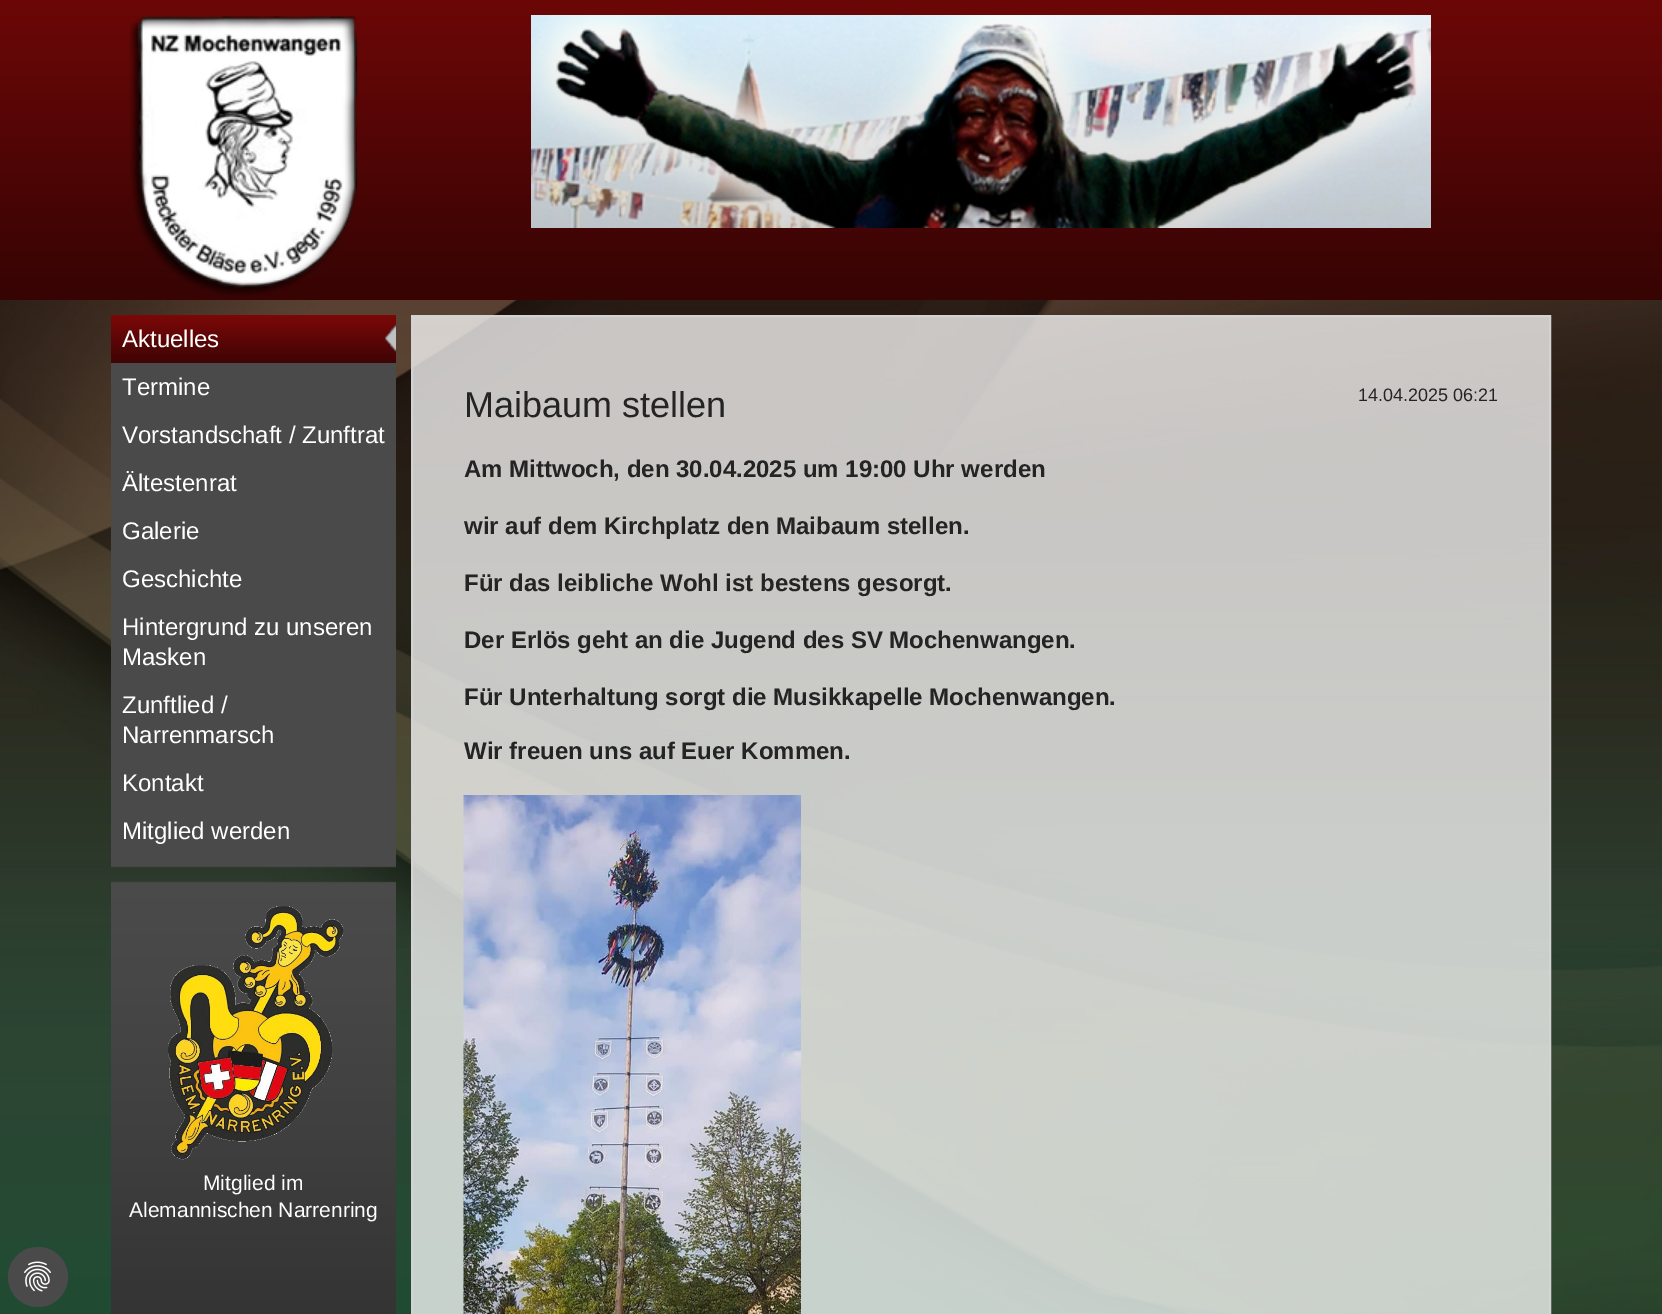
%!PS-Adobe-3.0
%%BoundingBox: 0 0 1662 1314
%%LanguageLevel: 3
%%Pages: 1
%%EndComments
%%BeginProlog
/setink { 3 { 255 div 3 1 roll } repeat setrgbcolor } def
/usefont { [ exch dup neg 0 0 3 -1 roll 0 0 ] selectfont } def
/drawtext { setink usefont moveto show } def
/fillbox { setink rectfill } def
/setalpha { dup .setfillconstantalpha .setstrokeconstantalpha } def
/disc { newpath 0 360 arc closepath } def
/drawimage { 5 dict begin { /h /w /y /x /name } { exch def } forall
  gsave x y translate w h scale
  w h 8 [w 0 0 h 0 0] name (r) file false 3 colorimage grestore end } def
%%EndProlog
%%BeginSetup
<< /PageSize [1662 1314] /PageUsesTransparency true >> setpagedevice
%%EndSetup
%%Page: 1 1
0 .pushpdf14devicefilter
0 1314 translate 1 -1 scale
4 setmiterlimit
0 0 1662 1314 255 255 255 fillbox
(assets/img1.rgb) 0 300 1662 1014 drawimage
(assets/img2.rgb) 0 0 1662 300 drawimage
(assets/img3.rgb) 129 15 229 281 drawimage
(assets/img4.rgb) 531 15 900 213 drawimage
111 325 285 530 75 74 74 fillbox
(assets/img5.rgb) 111 315 285 48 drawimage
(Aktuelles) 122 347 /LiberationSans-Regular 24 255 255 255 drawtext
(Termine) 122 395 /LiberationSans-Regular 24 255 255 255 drawtext
(Vorstandschaft / Zunftrat) 122 443 /LiberationSans-Regular 24 255 255 255 drawtext
(Ältestenrat) 122 491 /LiberationSans-Regular 24 255 255 255 drawtext
(Galerie) 122 539 /LiberationSans-Regular 24 255 255 255 drawtext
(Geschichte) 122 587 /LiberationSans-Regular 24 255 255 255 drawtext
(Hintergrund zu unseren) 122 635 /LiberationSans-Regular 24 255 255 255 drawtext
(Masken) 122 665 /LiberationSans-Regular 24 255 255 255 drawtext
(Zunftlied /) 122 713 /LiberationSans-Regular 24 255 255 255 drawtext
(Narrenmarsch) 122 743 /LiberationSans-Regular 24 255 255 255 drawtext
(Kontakt) 122 791 /LiberationSans-Regular 24 255 255 255 drawtext
(Mitglied werden) 122 839 /LiberationSans-Regular 24 255 255 255 drawtext
(assets/img6.rgb) 111 855 285 459 drawimage
(assets/img7.rgb) 168 906 176 254 drawimage
(Mitglied im) 203 1190 /LiberationSans-Regular 21 255 255 255 drawtext
(Alemannischen Narrenring) 129 1217 /LiberationSans-Regular 21 255 255 255 drawtext
0.75 setalpha
412 316 moveto 1550 316 lineto 1550 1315 lineto 412 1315 lineto closepath fill
1 setalpha
210 210 210 setink
2 setlinewidth
412 316 moveto 1550 316 lineto 1550 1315 lineto 412 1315 lineto closepath stroke
(Maibaum stellen) 464 417 /LiberationSans-Regular 36 36 36 36 drawtext
(14.04.2025 06:21) 1358 401 /LiberationSans-Regular 18 36 36 36 drawtext
(Am Mittwoch, den 30.04.2025 um 19:00 Uhr werden) 464 477 /LiberationSans-Bold 24 36 36 36 drawtext
(wir auf dem Kirchplatz den Maibaum stellen.) 464 534 /LiberationSans-Bold 24 36 36 36 drawtext
(Für das leibliche Wohl ist bestens gesorgt.) 464 591 /LiberationSans-Bold 24 36 36 36 drawtext
(Der Erlös geht an die Jugend des SV Mochenwangen.) 464 648 /LiberationSans-Bold 24 36 36 36 drawtext
(Für Unterhaltung sorgt die Musikkapelle Mochenwangen.) 464 705 /LiberationSans-Bold 24 36 36 36 drawtext
(Wir freuen uns auf Euer Kommen.) 464 759 /LiberationSans-Bold 24 36 36 36 drawtext
(assets/img8.rgb) 463 795 338 519 drawimage
75 74 74 setink
38 1277 30 disc fill
(assets/img9.rgb) 24 1261 27 31 drawimage
.poppdf14devicefilter showpage
%%EOF
